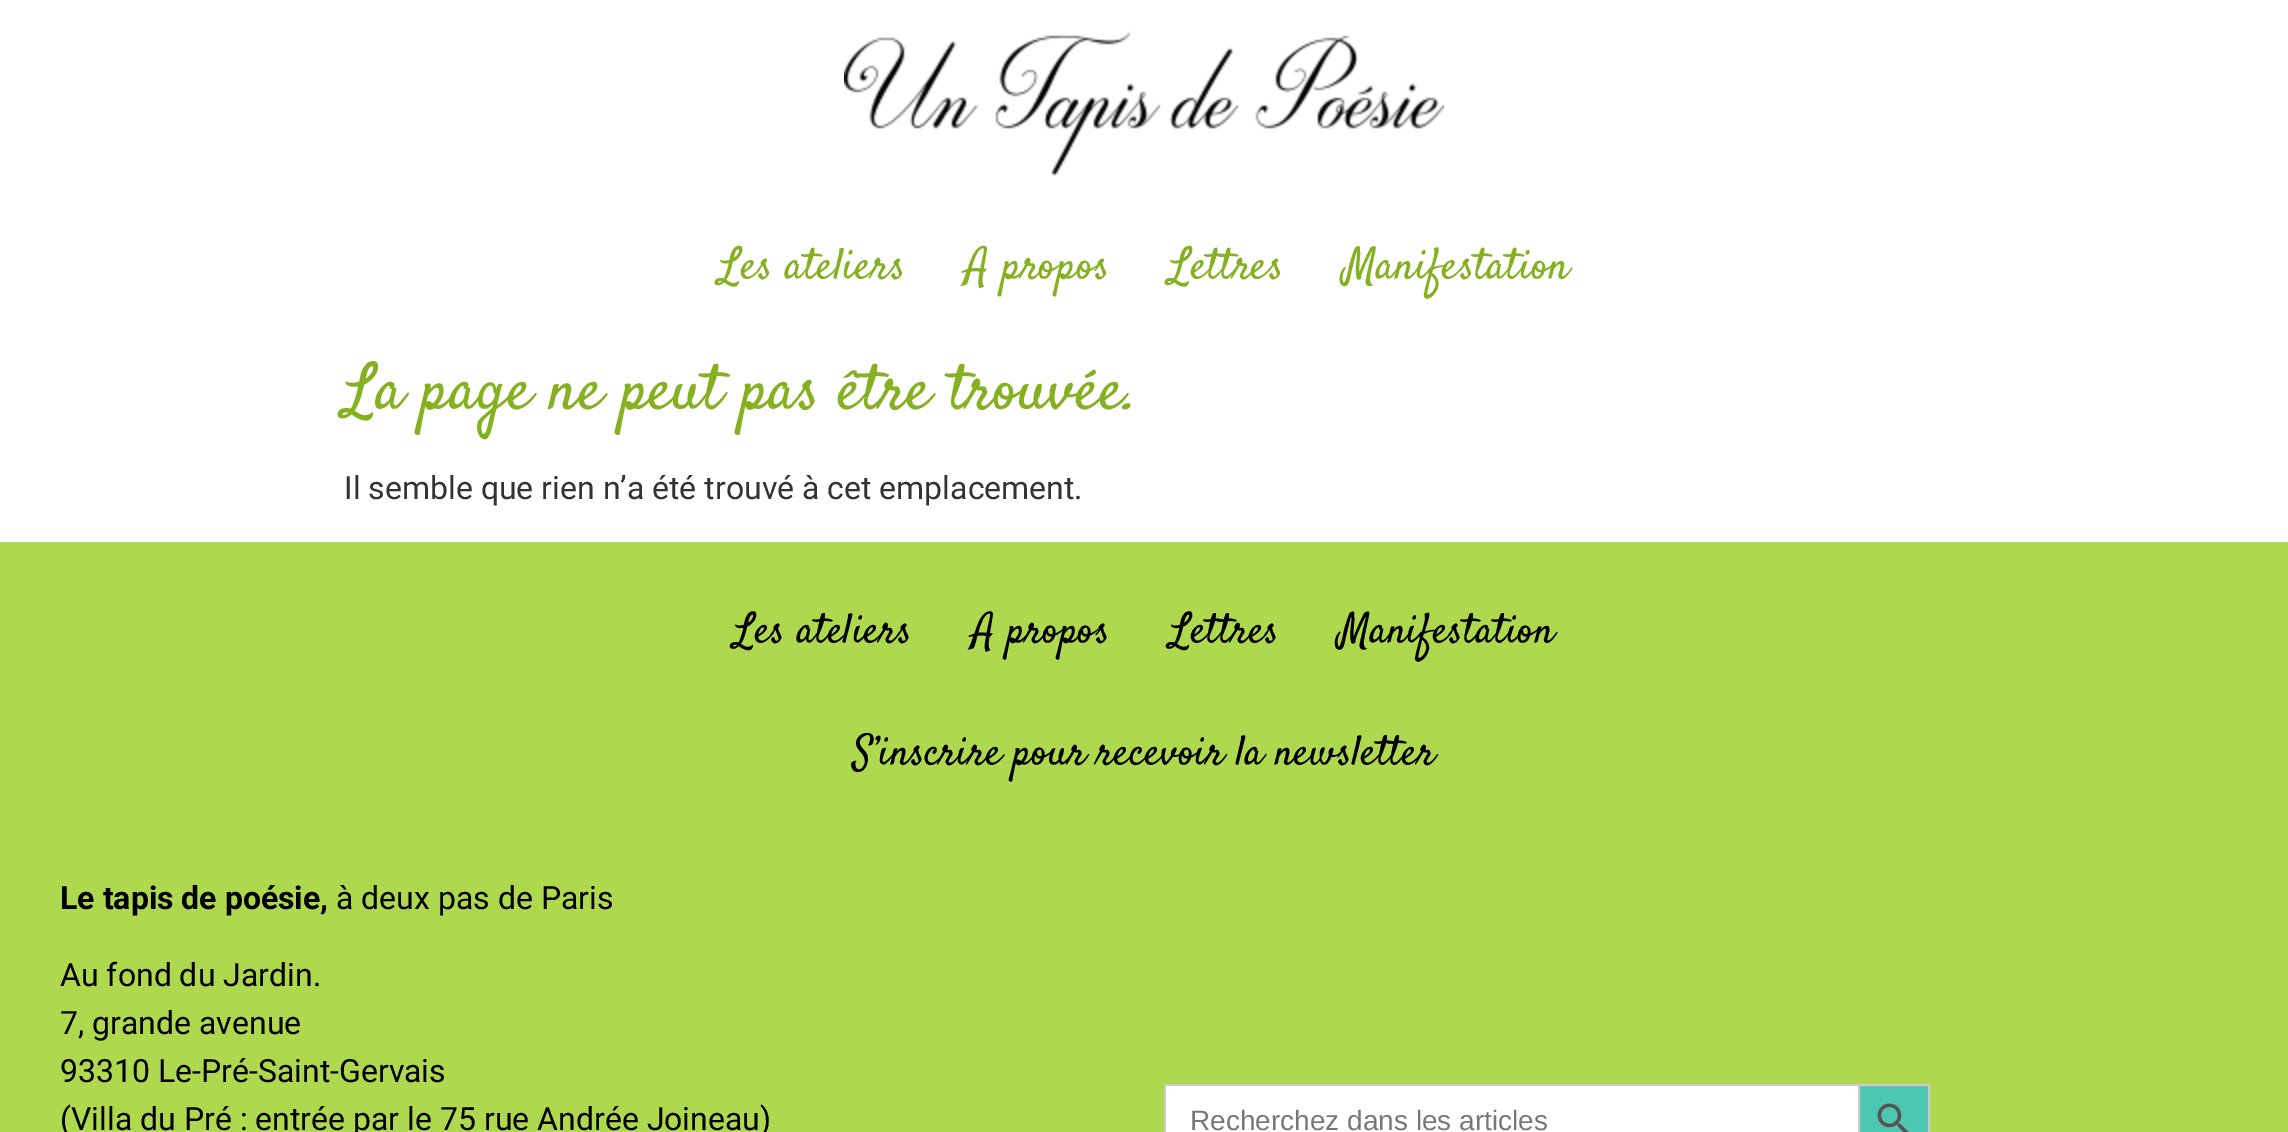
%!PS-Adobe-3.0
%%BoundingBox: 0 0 2288 1132
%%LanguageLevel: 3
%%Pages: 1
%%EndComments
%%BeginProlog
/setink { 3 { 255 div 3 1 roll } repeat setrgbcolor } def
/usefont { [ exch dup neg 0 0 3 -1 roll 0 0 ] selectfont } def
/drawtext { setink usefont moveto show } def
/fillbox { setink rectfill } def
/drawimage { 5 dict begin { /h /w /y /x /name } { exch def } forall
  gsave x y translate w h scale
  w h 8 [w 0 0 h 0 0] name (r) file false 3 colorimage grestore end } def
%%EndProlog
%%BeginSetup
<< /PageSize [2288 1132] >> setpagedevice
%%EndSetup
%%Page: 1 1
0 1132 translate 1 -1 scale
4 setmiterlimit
0 0 2288 1132 255 255 255 fillbox
(assets/img1.rgb) 844 31 600 145 drawimage
(Les ateliers) 719 278 /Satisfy-Regular 44 133 177 32 drawtext
(A propos) 965 278 /Satisfy-Regular 44 133 177 32 drawtext
(Lettres) 1169 278 /Satisfy-Regular 44 133 177 32 drawtext
(Manifestation) 1344 278 /Satisfy-Regular 44 133 177 32 drawtext
(La page ne peut pas être trouvée.) 344 408 /Satisfy-Regular 64 133 177 32 drawtext
(Il semble que rien n’a été trouvé à cet emplacement.) 344 499 /Roboto-Regular 32 51 51 51 drawtext
0 542 2288 590 174 216 77 fillbox
(Les ateliers) 734 642 /Satisfy-Regular 42 0 0 0 drawtext
(A propos) 972 642 /Satisfy-Regular 42 0 0 0 drawtext
(Lettres) 1170 642 /Satisfy-Regular 42 0 0 0 drawtext
(Manifestation) 1339 642 /Satisfy-Regular 42 0 0 0 drawtext
(S’inscrire pour recevoir la newsletter) 853 764 /Satisfy-Regular 42 0 0 0 drawtext
(Le tapis de poésie,) 60 909 /Roboto-Bold 32 0 0 0 drawtext
(à deux pas de Paris) 336 909 /Roboto-Regular 32 0 0 0 drawtext
(Au fond du Jardin.) 60 986 /Roboto-Regular 32 0 0 0 drawtext
(7, grande avenue) 60 1034 /Roboto-Regular 32 0 0 0 drawtext
(93310 Le-Pré-Saint-Gervais) 60 1082 /Roboto-Regular 32 0 0 0 drawtext
(\(Villa du Pré : entrée par le 75 rue Andrée Joineau\)) 60 1130 /Roboto-Regular 32 0 0 0 drawtext
1166 1086 692 46 255 255 255 fillbox
1164 1084 694 2 204 204 204 fillbox
1164 1084 2 48 204 204 204 fillbox
(Recherchez dans les articles) 1190 1130 /LiberationSans-Regular 28 119 119 119 drawtext
77 198 178 setink
1859 1085 moveto 1929 1085 lineto 1929 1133 lineto 1859 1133 lineto closepath gsave fill grestore
204 204 204 setink
2 setlinewidth
stroke
(assets/img2.rgb) 1877 1103 32 29 drawimage
showpage
%%EOF
